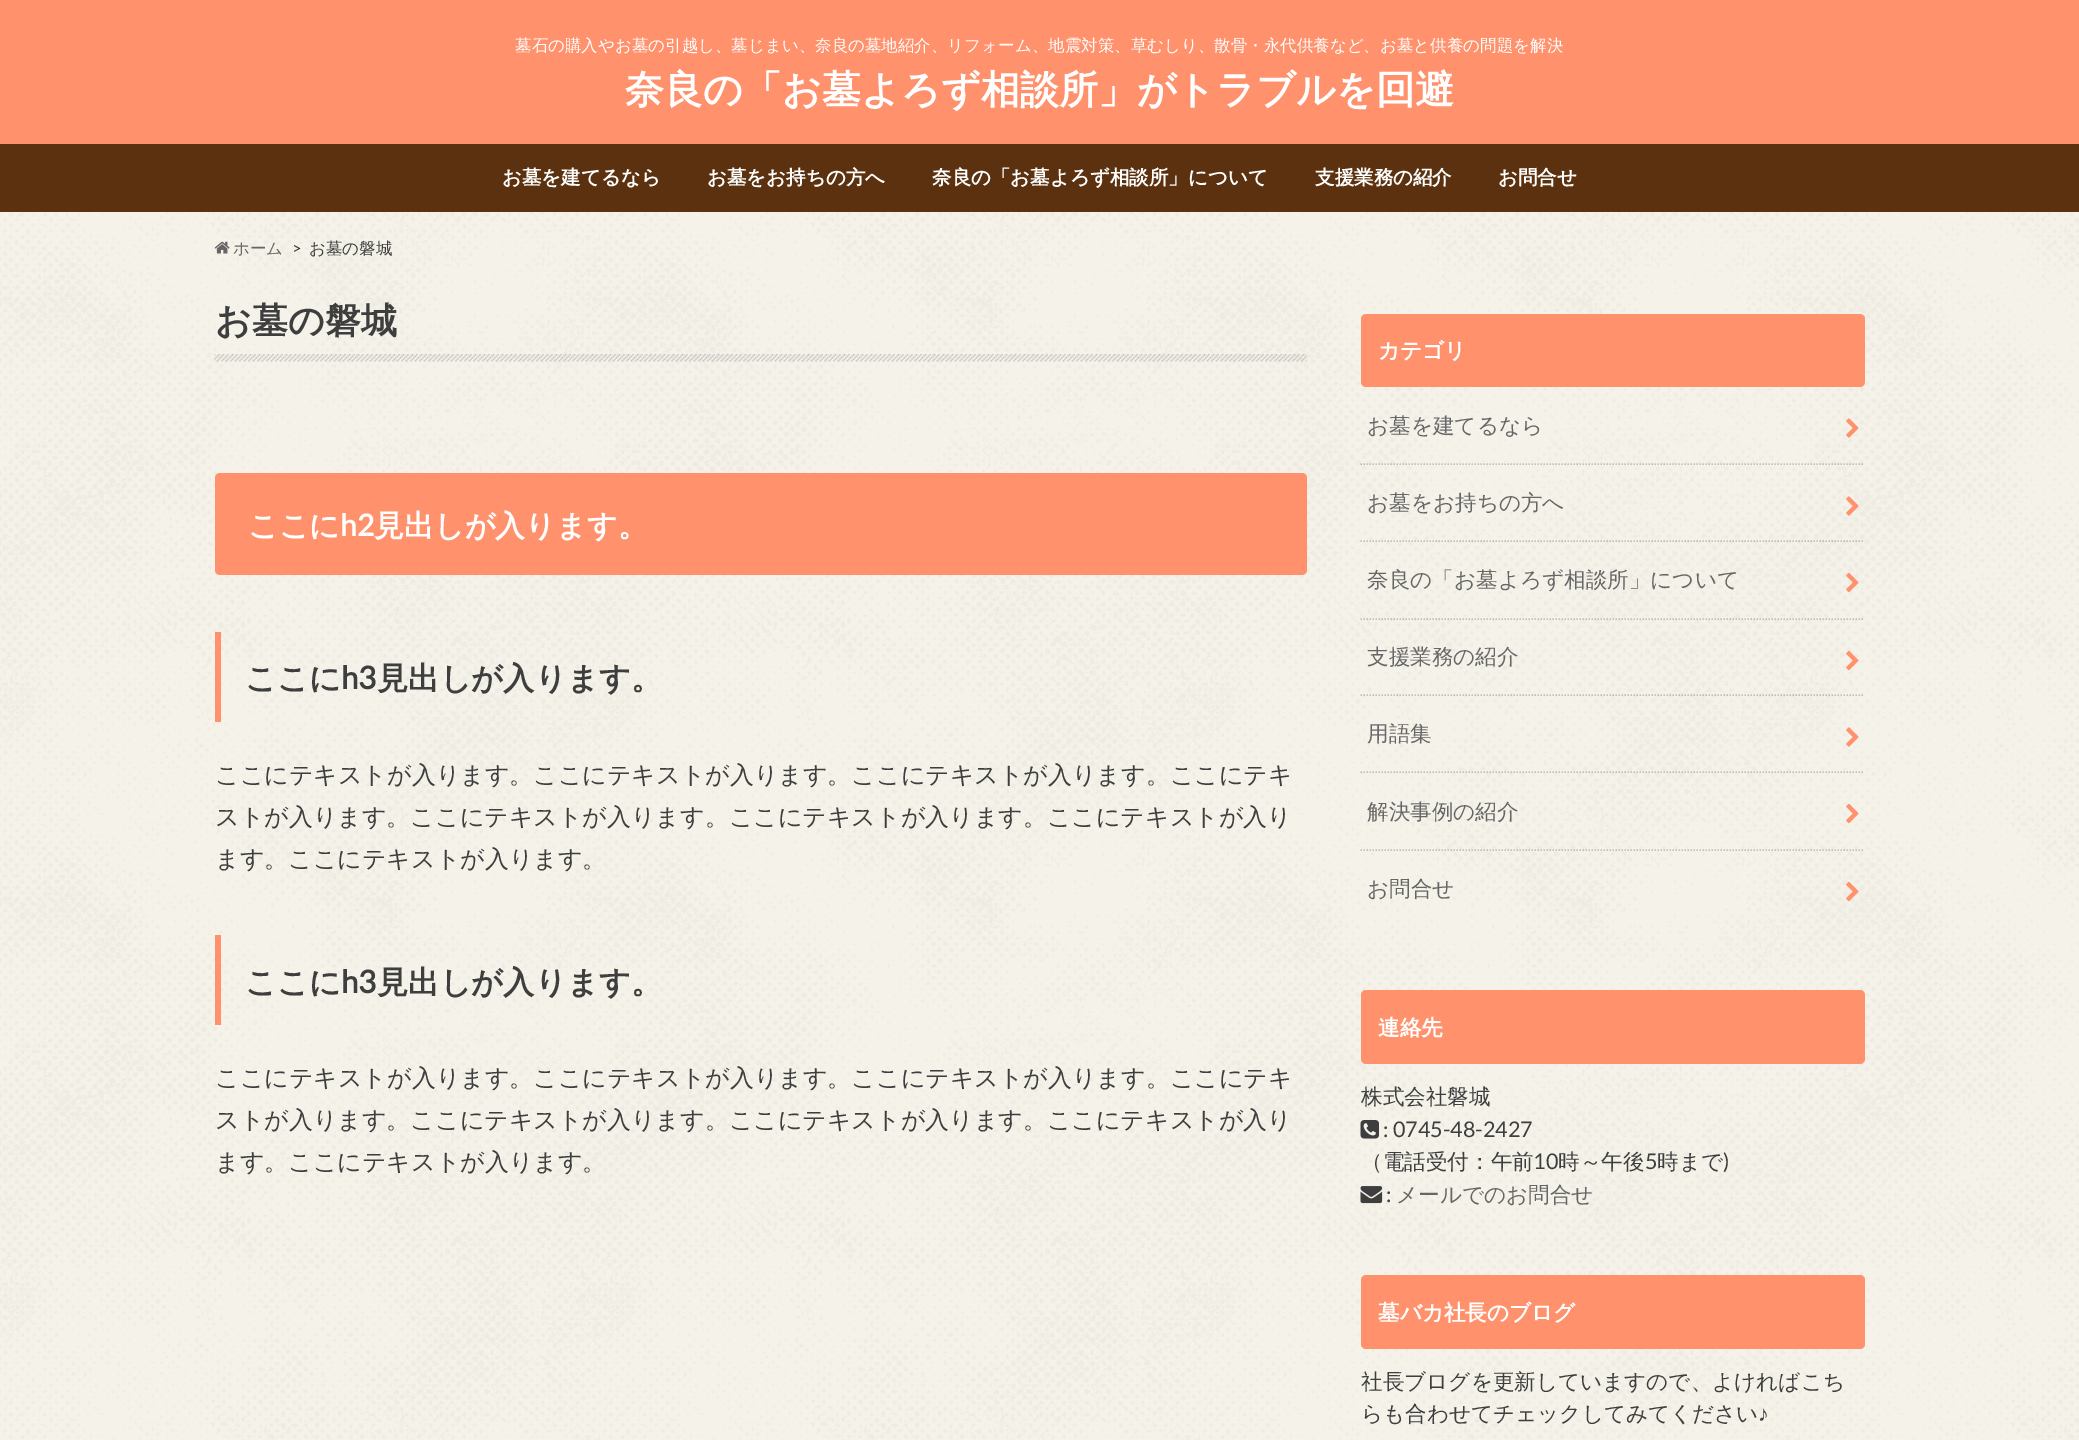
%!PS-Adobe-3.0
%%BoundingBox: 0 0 2079 1440
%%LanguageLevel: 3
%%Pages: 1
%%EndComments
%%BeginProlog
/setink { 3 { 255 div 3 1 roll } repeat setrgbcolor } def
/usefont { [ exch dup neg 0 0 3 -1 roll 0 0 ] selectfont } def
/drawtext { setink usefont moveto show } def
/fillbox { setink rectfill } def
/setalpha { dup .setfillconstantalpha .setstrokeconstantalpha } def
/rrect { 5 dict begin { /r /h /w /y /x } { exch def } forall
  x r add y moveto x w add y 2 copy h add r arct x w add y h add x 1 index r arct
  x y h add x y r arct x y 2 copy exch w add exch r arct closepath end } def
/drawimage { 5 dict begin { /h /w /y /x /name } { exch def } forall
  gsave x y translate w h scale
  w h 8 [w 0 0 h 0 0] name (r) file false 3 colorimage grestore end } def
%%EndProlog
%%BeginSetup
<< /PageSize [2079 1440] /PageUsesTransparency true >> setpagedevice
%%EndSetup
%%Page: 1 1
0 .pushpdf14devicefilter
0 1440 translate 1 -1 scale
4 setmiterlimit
0 0 2079 1440 255 255 255 fillbox
(assets/img1.rgb) 0 212 2079 1228 drawimage
0 0 2079 144 255 145 108 fillbox
(墓石の購入やお墓の引越し、墓じまい、奈良の墓地紹介、リフォーム、地震対策、草むしり、散骨・永代供養など、お墓と供養の問題を解決) 515 51 /WenQuanYiZenHei-Medium 16.5 255 255 255 drawtext
(奈良の「お墓よろず相談所」がトラブルを回避) 625 103 /WenQuanYiZenHei-Bold 39 255 255 255 drawtext
0 144 2079 68 91 49 15 fillbox
(お墓を建てるなら) 502 184 /WenQuanYiZenHei-Bold 19.5 255 255 255 drawtext
(お墓をお持ちの方へ) 707 184 /WenQuanYiZenHei-Bold 19.5 255 255 255 drawtext
(奈良の「お墓よろず相談所」について) 932 184 /WenQuanYiZenHei-Bold 19.5 255 255 255 drawtext
(支援業務の紹介) 1315 184 /WenQuanYiZenHei-Bold 19.5 255 255 255 drawtext
(お問合せ) 1498 184 /WenQuanYiZenHei-Bold 19.5 255 255 255 drawtext
(assets/img2.rgb) 214 241 16 13 drawimage
(ホーム) 233 254 /WenQuanYiZenHei-Medium 16.5 102 102 102 drawtext
(>) 292 254 /Lato-Regular 16.5 62 62 62 drawtext
(お墓の磐城) 309 254 /WenQuanYiZenHei-Medium 16.5 62 62 62 drawtext
(assets/img3.rgb) 214 354 1093 8 drawimage
(お墓の磐城) 215 333 /WenQuanYiZenHei-Bold 36 62 62 62 drawtext
255 145 108 setink
215 473 1092 102 5 rrect fill
(ここに) 248 536 /WenQuanYiZenHei-Bold 30 255 255 255 drawtext
(h2) 340 536 /Lato-Bold 30 255 255 255 drawtext
(見出しが入ります。) 374 536 /WenQuanYiZenHei-Bold 30 255 255 255 drawtext
215 632 6 90 255 145 108 fillbox
(ここに) 245 689 /WenQuanYiZenHei-Bold 31.25 62 62 62 drawtext
(h3) 341 689 /Lato-Bold 31.25 62 62 62 drawtext
(見出しが入ります。) 377 689 /WenQuanYiZenHei-Bold 31.25 62 62 62 drawtext
(ここにテキストが入ります。ここにテキストが入ります。ここにテキストが入ります。ここにテキ) 215 783 /WenQuanYiZenHei-Medium 24 62 62 62 drawtext
(ストが入ります。ここにテキストが入ります。ここにテキストが入ります。ここにテキストが入り) 215 825 /WenQuanYiZenHei-Medium 24 62 62 62 drawtext
(ます。ここにテキストが入ります。) 215 867 /WenQuanYiZenHei-Medium 24 62 62 62 drawtext
215 935 6 90 255 145 108 fillbox
(ここに) 245 993 /WenQuanYiZenHei-Bold 31.25 62 62 62 drawtext
(h3) 341 993 /Lato-Bold 31.25 62 62 62 drawtext
(見出しが入ります。) 377 993 /WenQuanYiZenHei-Bold 31.25 62 62 62 drawtext
(ここにテキストが入ります。ここにテキストが入ります。ここにテキストが入ります。ここにテキ) 215 1086 /WenQuanYiZenHei-Medium 24 62 62 62 drawtext
(ストが入ります。ここにテキストが入ります。ここにテキストが入ります。ここにテキストが入り) 215 1128 /WenQuanYiZenHei-Medium 24 62 62 62 drawtext
(ます。ここにテキストが入ります。) 215 1170 /WenQuanYiZenHei-Medium 24 62 62 62 drawtext
255 145 108 setink
1361 314 504 73 5 rrect fill
(カテゴリ) 1378 358 /WenQuanYiZenHei-Bold 21.6 255 255 255 drawtext
0.2 setalpha
0 0 0 setink
1.5 setlinewidth
[1.5 1.5] 0 setdash
1360.5 464 moveto 1864.5 464 lineto stroke
1 setalpha
(お墓を建てるなら) 1367 433 /WenQuanYiZenHei-Medium 21.6 102 102 102 drawtext
(assets/img4.rgb) 1846 418 13 20 drawimage
0.2 setalpha
0 0 0 setink
1360.5 541 moveto 1864.5 541 lineto stroke
1 setalpha
(お墓をお持ちの方へ) 1367 510 /WenQuanYiZenHei-Medium 21.6 102 102 102 drawtext
(assets/img5.rgb) 1846 496 13 20 drawimage
0.2 setalpha
0 0 0 setink
1360.5 619 moveto 1864.5 619 lineto stroke
1 setalpha
(奈良の「お墓よろず相談所」について) 1367 587 /WenQuanYiZenHei-Medium 21.6 102 102 102 drawtext
(assets/img6.rgb) 1846 572 13 21 drawimage
0.2 setalpha
0 0 0 setink
1360.5 695 moveto 1864.5 695 lineto stroke
1 setalpha
(支援業務の紹介) 1367 664 /WenQuanYiZenHei-Medium 21.6 102 102 102 drawtext
(assets/img7.rgb) 1846 650 13 21 drawimage
0.2 setalpha
0 0 0 setink
1360.5 772 moveto 1864.5 772 lineto stroke
1 setalpha
(用語集) 1367 741 /WenQuanYiZenHei-Medium 21.6 102 102 102 drawtext
(assets/img8.rgb) 1846 727 13 20 drawimage
0.2 setalpha
0 0 0 setink
1360.5 850 moveto 1864.5 850 lineto stroke
1 setalpha
(解決事例の紹介) 1367 819 /WenQuanYiZenHei-Medium 21.6 102 102 102 drawtext
(assets/img9.rgb) 1846 803 13 21 drawimage
(お問合せ) 1367 896 /WenQuanYiZenHei-Medium 21.6 102 102 102 drawtext
(assets/img10.rgb) 1846 881 13 21 drawimage
255 145 108 setink
1361 990 504 74 5 rrect fill
(連絡先) 1378 1035 /WenQuanYiZenHei-Bold 21.6 255 255 255 drawtext
(株式会社磐城) 1361 1104 /WenQuanYiZenHei-Medium 21.6 62 62 62 drawtext
(assets/img11.rgb) 1360 1120 19 19 drawimage
(: 0745-48-2427) 1383 1137 /Lato-Regular 21.6 62 62 62 drawtext
(（電話受付：午前) 1361 1169 /WenQuanYiZenHei-Medium 21.6 62 62 62 drawtext
(10) 1533 1169 /Lato-Regular 21.6 62 62 62 drawtext
(時～午後) 1558 1169 /WenQuanYiZenHei-Medium 21.6 62 62 62 drawtext
(5) 1645 1169 /Lato-Regular 21.6 62 62 62 drawtext
(時まで) 1657 1169 /WenQuanYiZenHei-Medium 21.6 62 62 62 drawtext
(\)) 1723 1169 /Lato-Regular 21.6 62 62 62 drawtext
(assets/img12.rgb) 1360 1186 23 18 drawimage
(:) 1386 1202 /Lato-Regular 21.6 62 62 62 drawtext
(メールでのお問合せ) 1396 1202 /WenQuanYiZenHei-Medium 21.6 102 102 102 drawtext
255 145 108 setink
1361 1275 504 74 5 rrect fill
(墓バカ社長のブログ) 1378 1320 /WenQuanYiZenHei-Bold 21.6 255 255 255 drawtext
(社長ブログを更新していますので、よければこち) 1361 1389 /WenQuanYiZenHei-Medium 21.6 62 62 62 drawtext
(らも合わせてチェックしてみてください) 1361 1421 /WenQuanYiZenHei-Medium 21.6 62 62 62 drawtext
(♪) 1758 1421 /LiberationSans-Regular 21.6 62 62 62 drawtext
.poppdf14devicefilter showpage
%%EOF
